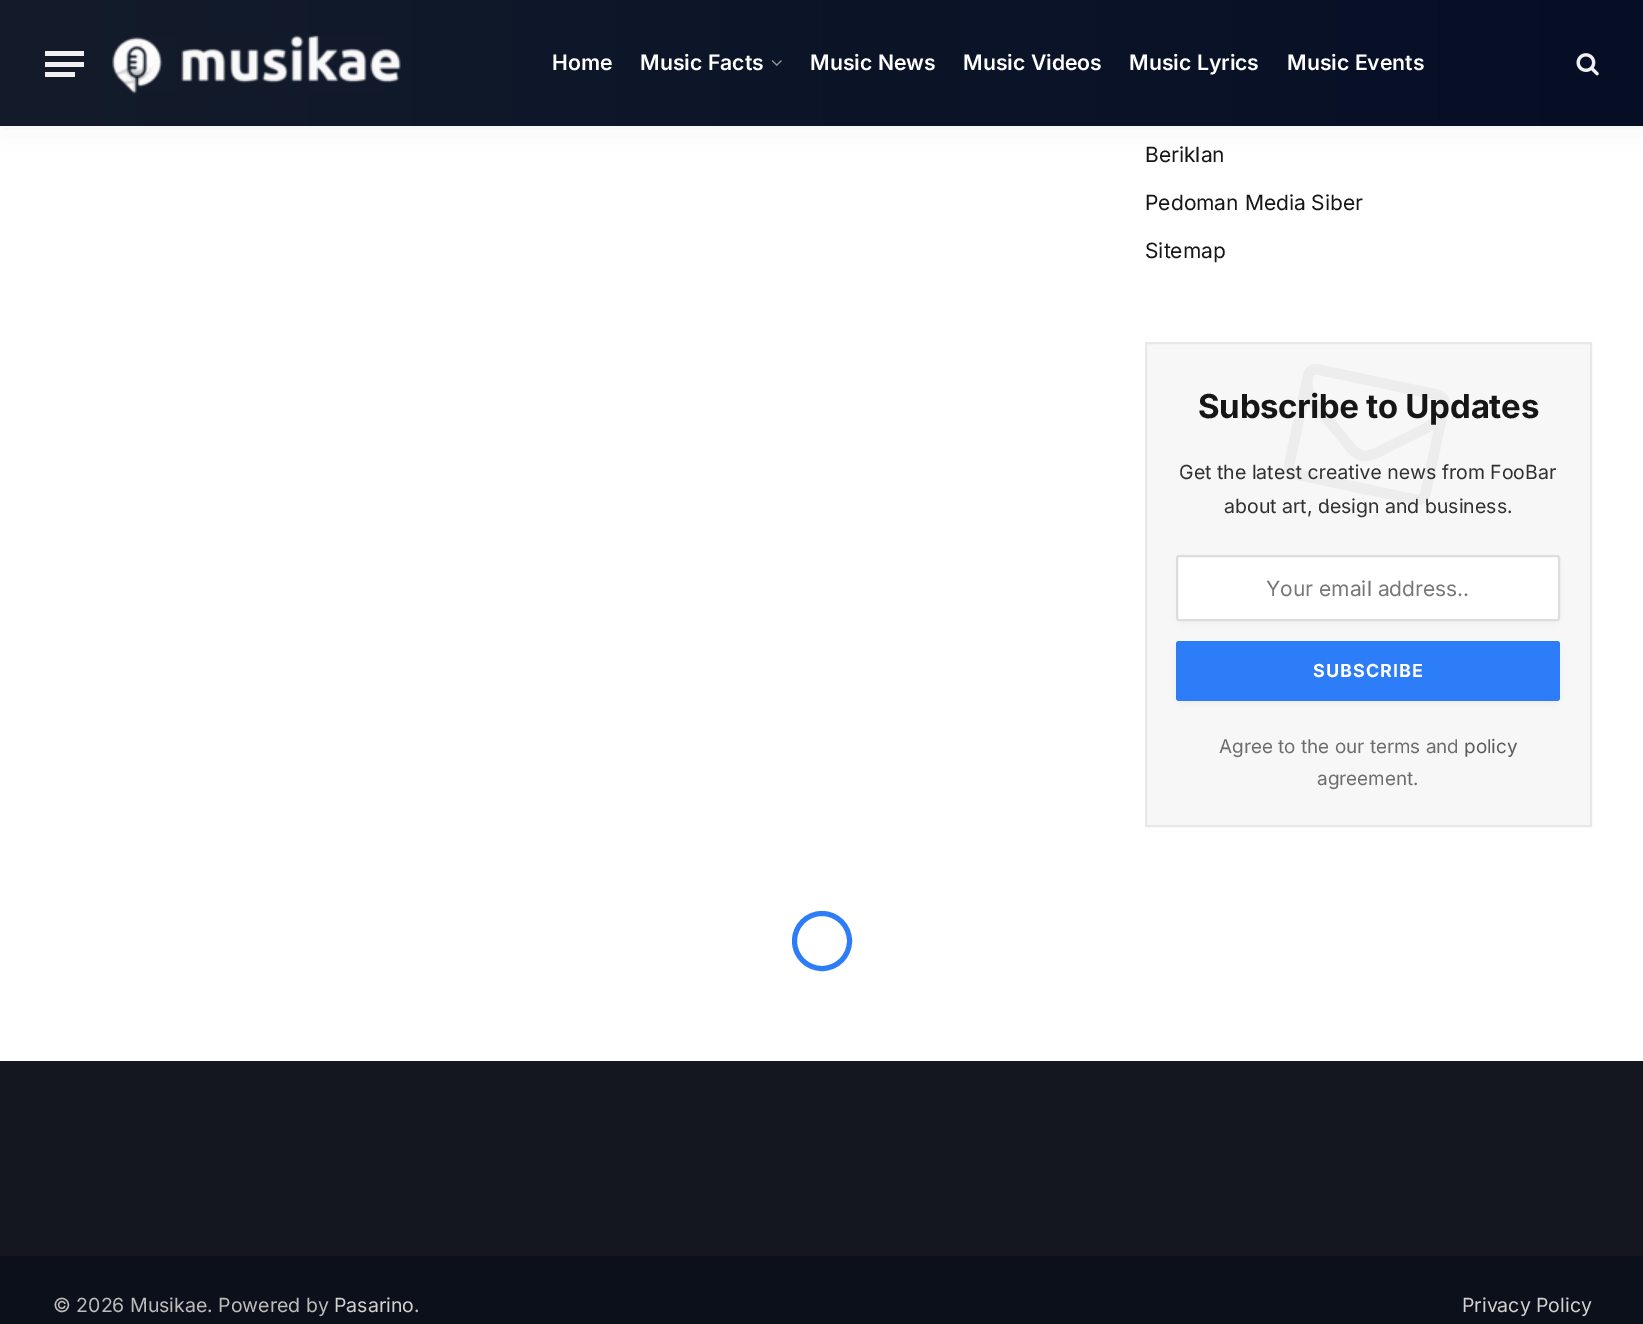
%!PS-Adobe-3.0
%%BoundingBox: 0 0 1643 1324
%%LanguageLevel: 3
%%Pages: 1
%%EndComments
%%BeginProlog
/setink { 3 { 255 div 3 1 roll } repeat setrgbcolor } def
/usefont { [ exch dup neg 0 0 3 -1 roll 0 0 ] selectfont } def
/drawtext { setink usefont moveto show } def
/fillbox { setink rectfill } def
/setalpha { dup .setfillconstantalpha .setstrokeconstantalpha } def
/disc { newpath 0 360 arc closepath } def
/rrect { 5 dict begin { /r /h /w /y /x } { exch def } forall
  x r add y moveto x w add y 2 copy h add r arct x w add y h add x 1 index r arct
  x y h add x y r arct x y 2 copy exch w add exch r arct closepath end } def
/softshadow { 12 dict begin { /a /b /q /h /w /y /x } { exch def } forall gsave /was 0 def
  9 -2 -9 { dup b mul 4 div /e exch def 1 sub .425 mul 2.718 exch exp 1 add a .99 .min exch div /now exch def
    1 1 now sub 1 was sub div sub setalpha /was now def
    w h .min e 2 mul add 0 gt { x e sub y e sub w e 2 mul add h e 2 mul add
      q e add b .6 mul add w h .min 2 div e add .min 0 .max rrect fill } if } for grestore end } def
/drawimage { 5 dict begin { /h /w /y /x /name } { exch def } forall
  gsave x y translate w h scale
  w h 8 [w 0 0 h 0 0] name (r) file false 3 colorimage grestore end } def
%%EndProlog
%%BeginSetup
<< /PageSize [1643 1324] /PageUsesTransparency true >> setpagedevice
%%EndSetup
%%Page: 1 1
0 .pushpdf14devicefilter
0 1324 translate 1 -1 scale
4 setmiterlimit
0 0 1643 1324 255 255 255 fillbox
0 0 0 setink
0 0 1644 126 0 15 0.05 softshadow
gsave 0 0 moveto 1643 0 lineto 1643 126 lineto 0 126 lineto closepath clip newpath
<< /ShadingType 2 /ColorSpace /DeviceRGB /Coords [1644 63 0 63] /Extend [true true] /Function << /FunctionType 2 /Domain [0 1] /C0 [0.02 0.055 0.145] /C1 [0.078 0.11 0.169] /N 1 >> >> shfill grestore
45 72 30 5 240 240 240 fillbox
45 51 39 5 240 240 240 fillbox
45 62 39 5 240 240 240 fillbox
(assets/img1.rgb) 112 35 289 59 drawimage
(Home) 552 70 /Inter-SemiBold 21.25 255 255 255 drawtext
(Music Facts) 640 70 /Inter-SemiBold 21.25 255 255 255 drawtext
(assets/img2.rgb) 771 60 11 6 drawimage
(Music News) 810 70 /Inter-SemiBold 21.25 255 255 255 drawtext
(Music Videos) 963 70 /Inter-SemiBold 21.25 255 255 255 drawtext
(Music Lyrics) 1129 70 /Inter-SemiBold 21.25 255 255 255 drawtext
(Music Events) 1287 70 /Inter-SemiBold 21.25 255 255 255 drawtext
(assets/img3.rgb) 1576 53 23 23 drawimage
(Beriklan) 1145 162 /Inter-Regular 21 22 22 22 drawtext
(Pedoman Media Siber) 1145 210 /Inter-Regular 21 22 22 22 drawtext
(Sitemap) 1145 258 /Inter-Regular 21 22 22 22 drawtext
247 247 247 setink
1146 343 moveto 1591 343 lineto 1591 826 lineto 1146 826 lineto closepath gsave fill grestore
232 232 232 setink
2 setlinewidth
stroke
/Inter-Bold 33 usefont
22 22 22 setink
1198 418 moveto -0.3 0 (Subscribe to Updates) ashow
(Get the latest creative news from FooBar) 1179 479 /Inter-Regular 19.5 49 49 49 drawtext
(about art, design and business.) 1224 513 /Inter-Regular 19.5 49 49 49 drawtext
(assets/img4.rgb) 1284 364 166 141 drawimage
0 0 0 setink
1182 564 372 54 0 5 0.1 softshadow
255 255 255 setink
1177 556 382 64 2 rrect gsave fill grestore
221 221 221 setink
stroke
(Your email address..) 1266 596 /Inter-Regular 21 119 119 119 drawtext
0 0 0 setink
1182 650 372 48 0 5 0.16 softshadow
45 125 248 setink
1176 641 384 60 3 rrect fill
/Inter-Bold 18 usefont
255 255 255 setink
1313 677 moveto 1 0 (SUBSCRIBE) ashow
(Agree to the our terms and) 1219 753 /Inter-Regular 18.9 109 109 109 drawtext
(policy) 1464 753 /Inter-Regular 18.9 90 90 90 drawtext
(agreement.) 1317 785 /Inter-Regular 18.9 109 109 109 drawtext
45 125 248 setink
5 setlinewidth
822 941 27.5 disc stroke
0 1061 1643 195 20 23 31 fillbox
0 1256 1643 68 11 16 27 fillbox
(© 2026 Musikae. Powered by) 53 1312 /Inter-Regular 19.5 187 187 187 drawtext
(Pasarino) 334 1312 /Inter-Regular 19.5 209 209 209 drawtext
(.) 414 1312 /Inter-Regular 19.5 187 187 187 drawtext
(Privacy Policy) 1462 1312 /Inter-Regular 19.5 209 209 209 drawtext
.poppdf14devicefilter showpage
%%EOF
